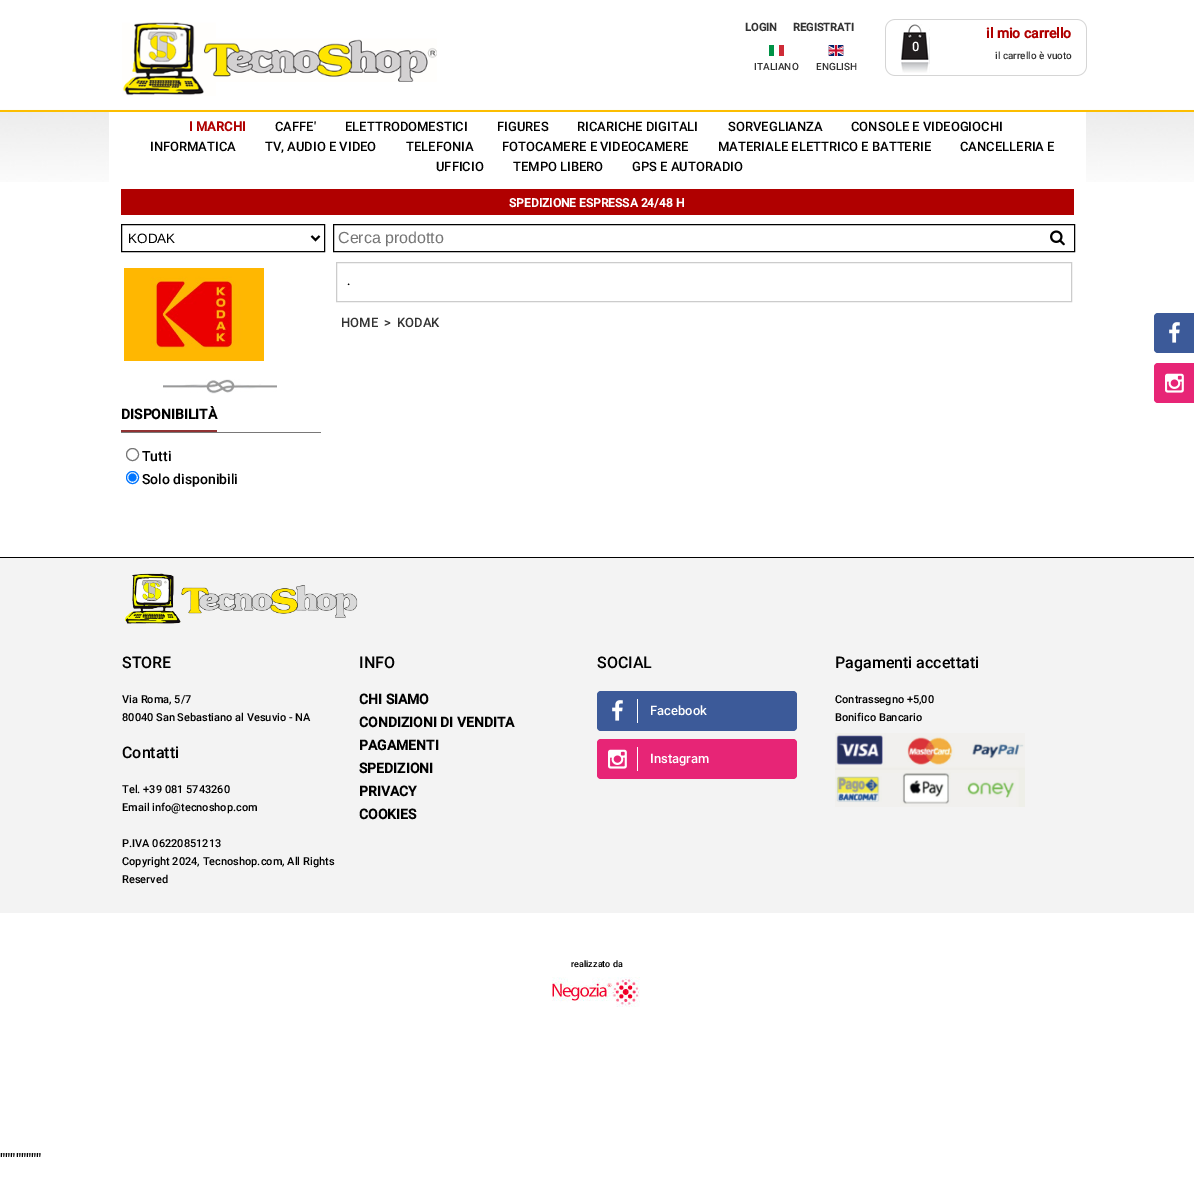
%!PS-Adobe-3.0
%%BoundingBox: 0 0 1194 1199
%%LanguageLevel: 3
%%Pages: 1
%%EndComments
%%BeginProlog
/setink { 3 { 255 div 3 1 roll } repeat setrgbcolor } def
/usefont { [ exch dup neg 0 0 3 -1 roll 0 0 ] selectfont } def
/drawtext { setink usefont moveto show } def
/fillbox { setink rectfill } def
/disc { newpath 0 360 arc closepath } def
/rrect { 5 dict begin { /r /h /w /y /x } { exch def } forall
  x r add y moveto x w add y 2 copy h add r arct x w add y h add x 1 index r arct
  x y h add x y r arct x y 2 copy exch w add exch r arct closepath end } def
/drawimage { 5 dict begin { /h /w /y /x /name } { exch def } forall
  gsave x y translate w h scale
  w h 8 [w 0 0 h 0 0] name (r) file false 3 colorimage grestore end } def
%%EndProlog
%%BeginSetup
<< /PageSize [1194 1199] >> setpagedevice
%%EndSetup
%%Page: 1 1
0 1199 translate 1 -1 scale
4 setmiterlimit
0 0 1194 1199 255 255 255 fillbox
(assets/img1.rgb) 0 109 1194 73 drawimage
109 112 977 70 255 255 255 fillbox
(assets/img2.rgb) 122 22 315 74 drawimage
(LOGIN) 745 31 /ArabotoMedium-Bold 11 51 51 51 drawtext
(REGISTRATI) 793 31 /ArabotoMedium-Bold 11 51 51 51 drawtext
769 45 5 11 0 146 70 fillbox
779 45 5 11 206 43 55 fillbox
(ITALIANO) 754 70 /ArabotoMedium-Medium 10 51 51 51 drawtext
(assets/img3.rgb) 828 45 16 11 drawimage
(ENGLISH) 816 70 /ArabotoMedium-Medium 10 51 51 51 drawtext
(assets/img4.rgb) 885 19 202 57 drawimage
(il mio carrello) 986 38 /ArabotoMedium-Bold 14 176 0 0 drawtext
(assets/img5.rgb) 901 24 29 49 drawimage
(0) 912 51 /ArabotoMedium-Medium 13 255 255 255 drawtext
(il carrello è vuoto) 995 59 /ArabotoMedium-Medium 10 51 51 51 drawtext
60 90 153 setink
1154 313 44 40 4 rrect fill
(assets/img6.rgb) 1169 322 11 21 drawimage
231 37 118 setink
1154 363 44 40 4 rrect fill
(assets/img7.rgb) 1165 373 19 20 drawimage
(I MARCHI) 189 131 /ArabotoMedium-Bold 13 176 0 0 drawtext
(CAFFE') 275 131 /ArabotoMedium-Medium 13 0 0 0 drawtext
(ELETTRODOMESTICI) 345 131 /ArabotoMedium-Medium 13 0 0 0 drawtext
(FIGURES) 497 131 /ArabotoMedium-Medium 13 0 0 0 drawtext
(RICARICHE DIGITALI) 577 131 /ArabotoMedium-Medium 13 0 0 0 drawtext
(SORVEGLIANZA) 728 131 /ArabotoMedium-Medium 13 0 0 0 drawtext
(CONSOLE E VIDEOGIOCHI) 851 131 /ArabotoMedium-Medium 13 0 0 0 drawtext
(INFORMATICA) 150 151 /ArabotoMedium-Medium 13 0 0 0 drawtext
(TV, AUDIO E VIDEO) 265 151 /ArabotoMedium-Medium 13 0 0 0 drawtext
(TELEFONIA) 406 151 /ArabotoMedium-Medium 13 0 0 0 drawtext
(FOTOCAMERE E VIDEOCAMERE) 502 151 /ArabotoMedium-Medium 13 0 0 0 drawtext
(MATERIALE ELETTRICO E BATTERIE) 718 151 /ArabotoMedium-Medium 13 0 0 0 drawtext
(CANCELLERIA E) 960 151 /ArabotoMedium-Medium 13 0 0 0 drawtext
(UFFICIO) 436 171 /ArabotoMedium-Medium 13 0 0 0 drawtext
(TEMPO LIBERO) 513 171 /ArabotoMedium-Medium 13 0 0 0 drawtext
(GPS E AUTORADIO) 632 171 /ArabotoMedium-Medium 13 0 0 0 drawtext
121 189 953 26 176 0 0 fillbox
(SPEDIZIONE ESPRESSA 24/48 H) 509 207 /ArabotoMedium-Bold 12 255 255 255 drawtext
0 0 0 setink
121.5 224.5 203 27 rectstroke
2 setlinewidth
311.5 236 moveto 315.5 240 lineto 319.5 236 lineto stroke
(KODAK) 128 243 /LiberationSans-Regular 13.5 0 0 0 drawtext
1 setlinewidth
333.5 224.5 741 27 rectstroke
(Cerca prodotto) 338 243 /LiberationSans-Regular 16 117 117 117 drawtext
(assets/img8.rgb) 1050 230 15 16 drawimage
204 204 204 setink
336.5 262.5 735 39 rectstroke
(.) 347 285 /ArabotoMedium-Medium 12 0 0 0 drawtext
(HOME) 341 327 /ArabotoMedium-Medium 13 51 51 51 drawtext
(>) 384 327 /ArabotoMedium-Medium 13 51 51 51 drawtext
(KODAK) 397 327 /ArabotoMedium-Medium 13 51 51 51 drawtext
(assets/img9.rgb) 124 268 140 93 drawimage
(assets/img10.rgb) 163 379 114 15 drawimage
121 432 200 1 121 120 120 fillbox
121 430 96 2 144 50 51 fillbox
(DISPONIBILITÀ) 121 419 /ArabotoMedium-Bold 14 0 0 0 drawtext
118 118 118 setink
132.5 454.5 6 disc stroke
(Tutti) 142 461 /ArabotoMedium-Medium 14 0 0 0 drawtext
0 117 255 setink
132.5 477.5 6 disc stroke
132.5 477.5 4 disc fill
(Solo disponibili) 142 484 /ArabotoMedium-Medium 14 0 0 0 drawtext
0 558 1194 355 243 243 243 fillbox
0 557 1194 1 0 0 0 fillbox
(assets/img11.rgb) 124 573 234 51 drawimage
(STORE) 122 668 /ArabotoMedium-Medium 16 0 0 0 drawtext
(Via Roma, 5/7) 122 703 /ArabotoMedium-Medium 11 0 0 0 drawtext
(80040 San Sebastiano al Vesuvio - NA) 122 721 /ArabotoMedium-Medium 11 0 0 0 drawtext
(Contatti) 122 758 /ArabotoMedium-Medium 16 0 0 0 drawtext
(Tel. +39 081 5743260) 122 793 /ArabotoMedium-Medium 11 0 0 0 drawtext
(Email info@tecnoshop.com) 122 811 /ArabotoMedium-Medium 11 0 0 0 drawtext
(P.IVA 06220851213) 122 847 /ArabotoMedium-Medium 11 0 0 0 drawtext
(Copyright 2024, Tecnoshop.com, All Rights) 122 865 /ArabotoMedium-Medium 11 0 0 0 drawtext
(Reserved) 122 883 /ArabotoMedium-Medium 11 0 0 0 drawtext
(INFO) 359 668 /ArabotoMedium-Medium 16 0 0 0 drawtext
(CHI SIAMO) 359 704 /ArabotoMedium-Bold 14 0 0 0 drawtext
(CONDIZIONI DI VENDITA) 359 727 /ArabotoMedium-Bold 14 0 0 0 drawtext
(PAGAMENTI) 359 750 /ArabotoMedium-Bold 14 0 0 0 drawtext
(SPEDIZIONI) 359 773 /ArabotoMedium-Bold 14 0 0 0 drawtext
(PRIVACY) 359 796 /ArabotoMedium-Bold 14 0 0 0 drawtext
(COOKIES) 359 819 /ArabotoMedium-Bold 14 0 0 0 drawtext
(SOCIAL) 597 668 /ArabotoMedium-Medium 16 0 0 0 drawtext
60 90 153 setink
597 691 200 40 4 rrect fill
637 699 1 24 255 255 255 fillbox
(assets/img6.rgb) 612 700 11 21 drawimage
(Facebook) 650 715 /ArabotoMedium-Medium 13 255 255 255 drawtext
231 37 118 setink
597 739 200 40 4 rrect fill
637 747 1 24 255 255 255 fillbox
(assets/img7.rgb) 608 749 19 20 drawimage
(Instagram) 650 763 /ArabotoMedium-Medium 13 255 255 255 drawtext
(Pagamenti accettati) 835 668 /ArabotoMedium-Medium 16 0 0 0 drawtext
(Contrassegno +5,00) 835 703 /ArabotoMedium-Medium 11 0 0 0 drawtext
(Bonifico Bancario) 835 721 /ArabotoMedium-Medium 11 0 0 0 drawtext
(assets/img12.rgb) 835 733 190 74 drawimage
(realizzato da) 571 967 /ArabotoMedium-Medium 9 0 0 0 drawtext
(assets/img13.rgb) 552 977 88 30 drawimage
("""""""") 0 1165 /ArabotoMedium-Medium 16 0 0 0 drawtext
showpage
%%EOF
